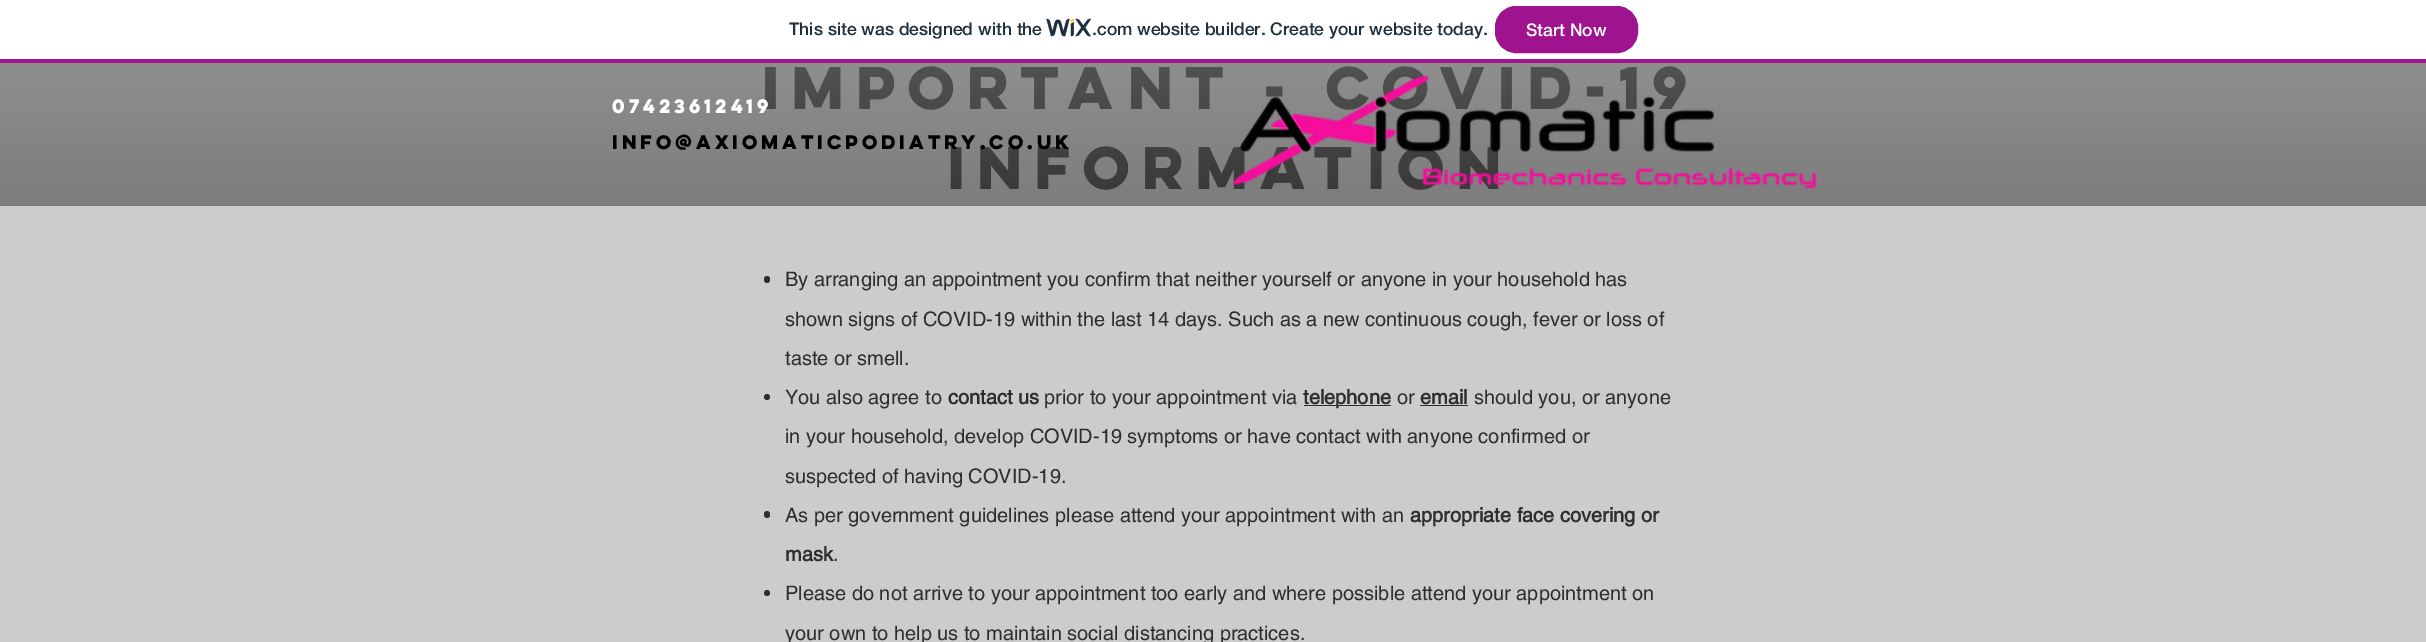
%!PS-Adobe-3.0
%%BoundingBox: 0 0 2426 642
%%LanguageLevel: 3
%%Pages: 1
%%EndComments
%%BeginProlog
/setink { 3 { 255 div 3 1 roll } repeat setrgbcolor } def
/usefont { [ exch dup neg 0 0 3 -1 roll 0 0 ] selectfont } def
/drawtext { setink usefont moveto show } def
/fillbox { setink rectfill } def
/disc { newpath 0 360 arc closepath } def
/rrect { 5 dict begin { /r /h /w /y /x } { exch def } forall
  x r add y moveto x w add y 2 copy h add r arct x w add y h add x 1 index r arct
  x y h add x y r arct x y 2 copy exch w add exch r arct closepath end } def
/drawimage { 5 dict begin { /h /w /y /x /name } { exch def } forall
  gsave x y translate w h scale
  w h 8 [w 0 0 h 0 0] name (r) file false 3 colorimage grestore end } def
%%EndProlog
%%BeginSetup
<< /PageSize [2426 642] >> setpagedevice
%%EndSetup
%%Page: 1 1
0 642 translate 1 -1 scale
4 setmiterlimit
0 0 2426 642 204 204 204 fillbox
0 0 2426 59 255 255 255 fillbox
0 59 2426 4 160 19 142 fillbox
(This site was designed with the) 789 35 /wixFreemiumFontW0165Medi-Medium 17.5 32 48 60 drawtext
(assets/img1.rgb) 1046 18 45 19 drawimage
(.com website builder. Create your website today.) 1092 35 /wixFreemiumFontW0165Medi-Medium 17.5 32 48 60 drawtext
160 19 142 setink
1495.5 6.5 142 46 20.5 rrect gsave fill grestore
stroke
(Start Now) 1526 36 /wixFreemiumFontW0165Medi-Medium 17.5 255 255 255 drawtext
0 63 2426 143 103 103 103 fillbox
(Important - COVID-19) 762 109 /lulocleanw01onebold-Bold 53.75 21 21 21 drawtext
(Information) 947 189 /lulocleanw01onebold-Bold 53.75 21 21 21 drawtext
47 46 46 setink
764 276 6 7 3 rrect fill
(By arranging an appointment you confirm that neither yourself or anyone in your household has) 785 286 /helvetica-Regular 20 47 46 46 drawtext
(shown signs of COVID-19 within the last 14 days. Such as a new continuous cough, fever or loss of) 785 326 /helvetica-Regular 20 47 46 46 drawtext
(taste or smell.) 785 365 /helvetica-Regular 20 47 46 46 drawtext
767 397 3 disc fill
(You also agree to) 785 404 /helvetica-Regular 20 47 46 46 drawtext
(contact us) 948 404 /helvetica-Bold 20 47 46 46 drawtext
(prior to your appointment via) 1044 404 /helvetica-Regular 20 47 46 46 drawtext
1304 405 87 1 47 46 46 fillbox
(telephone) 1303 404 /helvetica-Bold 20 47 46 46 drawtext
(or) 1397 404 /helvetica-Regular 20 47 46 46 drawtext
(email) 1420 404 /helvetica-Bold 20 47 46 46 drawtext
1420 405 48 1 47 46 46 fillbox
(should you, or anyone) 1474 404 /helvetica-Regular 20 47 46 46 drawtext
(in your household, develop COVID-19 symptoms or have contact with anyone confirmed or) 785 443 /helvetica-Regular 20 47 46 46 drawtext
(suspected of having COVID-19.) 785 483 /helvetica-Regular 20 47 46 46 drawtext
764 511 6 7 3 rrect fill
(As per government guidelines please attend your appointment with an) 785 522 /helvetica-Regular 20 47 46 46 drawtext
(appropriate face covering or) 1410 522 /helvetica-Bold 20 47 46 46 drawtext
(mask) 785 561 /helvetica-Bold 20 47 46 46 drawtext
(.) 833 561 /helvetica-Regular 20 47 46 46 drawtext
767 593 3 disc fill
(Please do not arrive to your appointment too early and where possible attend your appointment on) 785 600 /helvetica-Regular 20 47 46 46 drawtext
(your own to help us to maintain social distancing practices.) 785 640 /helvetica-Regular 20 47 46 46 drawtext
(assets/img2.rgb) 0 63 2426 143 drawimage
(07423612419) 612 113 /lulocleanw01onebold-Bold 17.5 255 255 255 drawtext
(info@axiomaticpodiatry.co.uk) 612 149 /lulocleanw01onebold-Bold 17.5 0 0 0 drawtext
(assets/img3.rgb) 1232 75 585 114 drawimage
showpage
%%EOF
